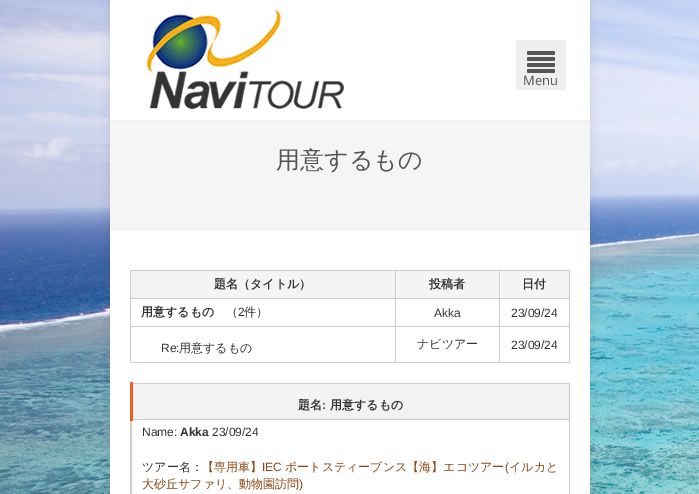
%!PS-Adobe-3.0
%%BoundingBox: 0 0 699 494
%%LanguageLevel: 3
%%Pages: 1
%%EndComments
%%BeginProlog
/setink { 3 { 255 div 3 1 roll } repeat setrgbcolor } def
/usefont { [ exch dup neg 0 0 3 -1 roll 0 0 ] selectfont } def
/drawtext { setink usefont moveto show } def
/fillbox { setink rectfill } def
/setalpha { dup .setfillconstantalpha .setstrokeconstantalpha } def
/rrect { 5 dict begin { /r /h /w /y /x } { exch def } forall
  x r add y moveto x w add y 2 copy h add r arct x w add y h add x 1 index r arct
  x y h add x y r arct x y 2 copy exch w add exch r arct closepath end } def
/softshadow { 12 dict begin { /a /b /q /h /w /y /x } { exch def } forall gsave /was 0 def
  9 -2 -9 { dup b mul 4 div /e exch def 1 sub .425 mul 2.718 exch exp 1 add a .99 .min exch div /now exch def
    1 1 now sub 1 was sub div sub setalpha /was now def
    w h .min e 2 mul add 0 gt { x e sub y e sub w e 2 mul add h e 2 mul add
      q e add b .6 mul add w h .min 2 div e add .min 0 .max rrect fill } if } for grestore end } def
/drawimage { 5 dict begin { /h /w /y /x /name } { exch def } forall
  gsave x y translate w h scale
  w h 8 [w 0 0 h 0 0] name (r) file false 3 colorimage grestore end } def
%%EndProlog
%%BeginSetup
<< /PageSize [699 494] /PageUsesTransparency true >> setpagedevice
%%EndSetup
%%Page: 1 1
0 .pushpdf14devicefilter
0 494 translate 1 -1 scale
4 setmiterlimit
0 0 699 494 255 255 255 fillbox
(assets/img1.rgb) 0 0 699 494 drawimage
0 0 0 setink
110 0 480 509 0 5 0.1 softshadow
110 0 480 494 255 255 255 fillbox
(assets/img2.rgb) 146 9 198 100 drawimage
516 40 50 50 238 238 238 fillbox
(assets/img3.rgb) 527 51 28 22 drawimage
(Menu) 523 85 /OpenSans-Regular 13 85 85 85 drawtext
110 121 480 108 245 245 245 fillbox
110 120 480 1 238 238 238 fillbox
110 229 480 1 238 238 238 fillbox
(用意するもの) 276 168 /WenQuanYiZenHei-Medium 24 85 85 85 drawtext
130 270 440 1 204 204 204 fillbox
569 270 1 93 204 204 204 fillbox
130 362 440 1 204 204 204 fillbox
130 270 1 93 204 204 204 fillbox
131 271 264 27 244 244 244 fillbox
499 326 1 37 204 204 204 fillbox
499 326 71 1 204 204 204 fillbox
499 298 1 29 204 204 204 fillbox
499 298 71 1 204 204 204 fillbox
499 270 1 29 204 204 204 fillbox
395 326 1 37 204 204 204 fillbox
395 326 105 1 204 204 204 fillbox
395 298 1 29 204 204 204 fillbox
395 298 105 1 204 204 204 fillbox
395 270 1 29 204 204 204 fillbox
130 298 266 1 204 204 204 fillbox
(題名（タイトル）) 214 288 /WenQuanYiZenHei-Bold 12 51 51 51 drawtext
396 271 103 27 244 244 244 fillbox
(投稿者) 429 288 /WenQuanYiZenHei-Bold 12 51 51 51 drawtext
501 271 68 27 244 244 244 fillbox
(日付) 522 288 /WenQuanYiZenHei-Bold 12 51 51 51 drawtext
130 326 266 1 204 204 204 fillbox
(用意するもの) 141 316 /WenQuanYiZenHei-Bold 12 51 51 51 drawtext
(（) 226 316 /WenQuanYiZenHei-Medium 12 51 51 51 drawtext
(2) 238 316 /LiberationSans-Regular 12 51 51 51 drawtext
(件）) 244 316 /WenQuanYiZenHei-Medium 12 51 51 51 drawtext
(Akka) 434 317 /LiberationSans-Regular 12 51 51 51 drawtext
(23/09/24) 511 317 /LiberationSans-Regular 12 51 51 51 drawtext
(Re:) 161 352 /LiberationSans-Regular 12 51 51 51 drawtext
(用意するもの) 179 352 /WenQuanYiZenHei-Medium 12 51 51 51 drawtext
(ナビツアー) 417 348 /WenQuanYiZenHei-Medium 12 51 51 51 drawtext
(23/09/24) 511 349 /LiberationSans-Regular 12 51 51 51 drawtext
130 383 440 1 204 204 204 fillbox
569 383 1 111 204 204 204 fillbox
130 421 1 73 204 204 204 fillbox
133 384 436 35 242 242 242 fillbox
131 419 1 75 204 204 204 fillbox
131 419 439 1 204 204 204 fillbox
130 382 3 39 241 90 35 fillbox
(題名) 298 409 /WenQuanYiZenHei-Bold 12 51 51 51 drawtext
(:) 322 409 /LiberationSans-Bold 12 51 51 51 drawtext
(用意するもの) 330 409 /WenQuanYiZenHei-Bold 12 51 51 51 drawtext
(Name:) 142 436 /LiberationSans-Regular 12 51 51 51 drawtext
(Akka) 180 436 /LiberationSans-Bold 12 51 51 51 drawtext
(23/09/24) 212 436 /LiberationSans-Regular 12 51 51 51 drawtext
(ツアー名：) 142 471 /WenQuanYiZenHei-Medium 12 51 51 51 drawtext
(【専用車】) 202 471 /WenQuanYiZenHei-Medium 12 139 69 19 drawtext
(IEC) 262 471 /LiberationSans-Regular 12 139 69 19 drawtext
(ポートスティーブンス【海】エコツアー) 285 471 /WenQuanYiZenHei-Medium 12 139 69 19 drawtext
(\() 505 471 /LiberationSans-Regular 12 139 69 19 drawtext
(イルカと) 509 471 /WenQuanYiZenHei-Medium 12 139 69 19 drawtext
(大砂丘サファリ、動物園訪問) 142 488 /WenQuanYiZenHei-Medium 12 139 69 19 drawtext
(\)) 299 488 /LiberationSans-Regular 12 139 69 19 drawtext
.poppdf14devicefilter showpage
%%EOF
